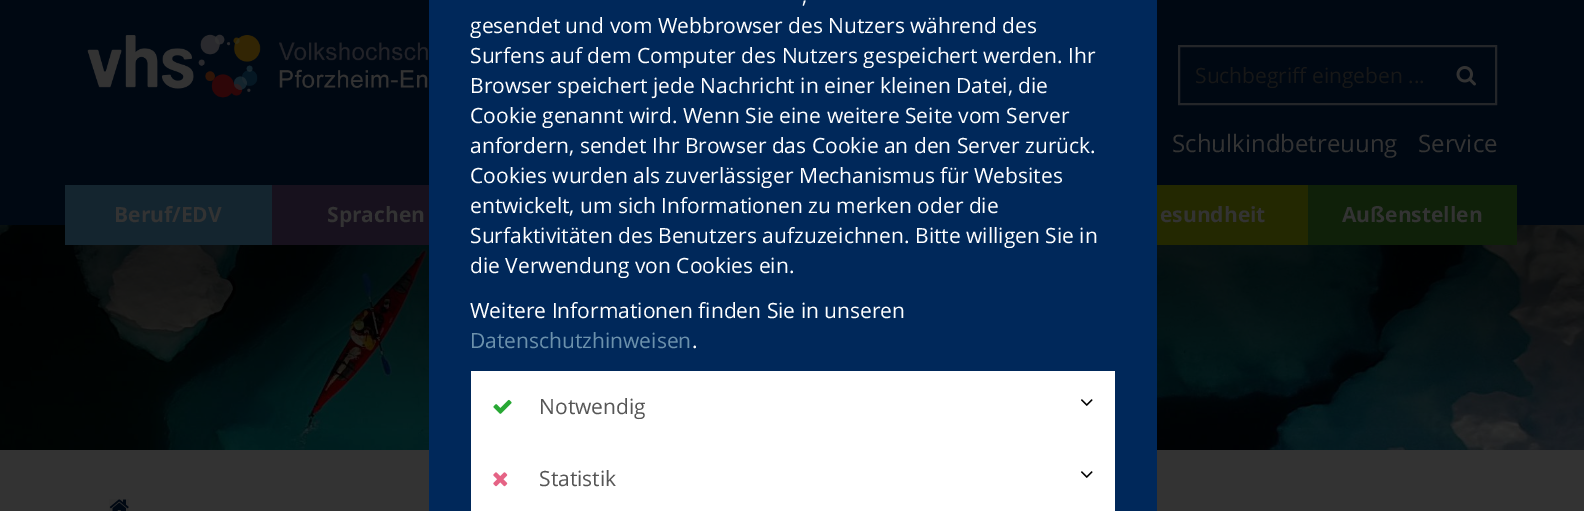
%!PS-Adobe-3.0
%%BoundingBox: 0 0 1584 511
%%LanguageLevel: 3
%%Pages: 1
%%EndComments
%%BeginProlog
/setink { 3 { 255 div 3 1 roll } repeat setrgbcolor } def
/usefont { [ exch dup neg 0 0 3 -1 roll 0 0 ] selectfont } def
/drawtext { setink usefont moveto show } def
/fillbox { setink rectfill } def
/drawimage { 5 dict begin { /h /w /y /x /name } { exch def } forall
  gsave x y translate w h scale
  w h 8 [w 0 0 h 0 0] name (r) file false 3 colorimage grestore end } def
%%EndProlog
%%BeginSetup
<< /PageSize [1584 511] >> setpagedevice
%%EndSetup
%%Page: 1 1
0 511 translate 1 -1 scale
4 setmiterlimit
0 0 1584 511 51 51 51 fillbox
0 0 1584 225 0 8 18 fillbox
(assets/img6.rgb) 0 225 1584 225 drawimage
(assets/img7.rgb) 0 225 1584 203 drawimage
429 0 728 511 0 40 90 fillbox
(,) 802 3 /OpenSans-Regular 21 255 255 255 drawtext
(gesendet und vom Webbrowser des Nutzers während des) 470 33 /OpenSans-Regular 21 255 255 255 drawtext
(Surfens auf dem Computer des Nutzers gespeichert werden. Ihr) 470 63 /OpenSans-Regular 21 255 255 255 drawtext
(Browser speichert jede Nachricht in einer kleinen Datei, die) 470 93 /OpenSans-Regular 21 255 255 255 drawtext
(Cookie genannt wird. Wenn Sie eine weitere Seite vom Server) 470 123 /OpenSans-Regular 21 255 255 255 drawtext
(anfordern, sendet Ihr Browser das Cookie an den Server zurück.) 470 153 /OpenSans-Regular 21 255 255 255 drawtext
(Cookies wurden als zuverlässiger Mechanismus für Websites) 470 183 /OpenSans-Regular 21 255 255 255 drawtext
(entwickelt, um sich Informationen zu merken oder die) 470 213 /OpenSans-Regular 21 255 255 255 drawtext
(Surfaktivitäten des Benutzers aufzuzeichnen. Bitte willigen Sie in) 470 243 /OpenSans-Regular 21 255 255 255 drawtext
(die Verwendung von Cookies ein.) 470 273 /OpenSans-Regular 21 255 255 255 drawtext
(Weitere Informationen finden Sie in unseren) 470 318 /OpenSans-Regular 21 255 255 255 drawtext
(Datenschutzhinweisen) 470 348 /OpenSans-Regular 21 108 145 172 drawtext
(.) 692 348 /OpenSans-Regular 21 255 255 255 drawtext
471 371 644 140 255 255 255 fillbox
(assets/img1.rgb) 493 399 19 15 drawimage
(Notwendig) 539 414 /OpenSans-Regular 21 86 86 86 drawtext
(assets/img2.rgb) 1081 399 12 7 drawimage
(assets/img3.rgb) 493 472 15 15 drawimage
(Statistik) 539 486 /OpenSans-Regular 21 86 86 86 drawtext
(assets/img2.rgb) 1081 471 12 7 drawimage
(assets/img4.rgb) 87 34 342 64 drawimage
36 38 41 setink
2 setlinewidth
1179 46 317 58 rectstroke
(Suchbegriff eingeben ...) 1195 83 /OpenSans-Regular 21 23 23 23 drawtext
(assets/img5.rgb) 1456 66 20 20 drawimage
(Schulkindbetreuung) 1172 152 /OpenSans-Regular 24 51 51 51 drawtext
(Service) 1418 152 /OpenSans-Regular 24 51 51 51 drawtext
65 185 207 60 20 37 47 fillbox
(Beruf/EDV) 114 222 /OpenSans-Bold 21 51 51 51 drawtext
272 185 157 60 23 17 29 fillbox
(Sprachen) 327 222 /OpenSans-Bold 21 51 51 51 drawtext
1157 185 151 60 35 40 1 fillbox
(esundheit) 1160 222 /OpenSans-Bold 21 51 51 51 drawtext
1308 185 209 60 15 32 9 fillbox
(Außenstellen) 1342 222 /OpenSans-Bold 21 51 51 51 drawtext
(assets/img8.rgb) 109 499 20 12 drawimage
showpage
%%EOF
